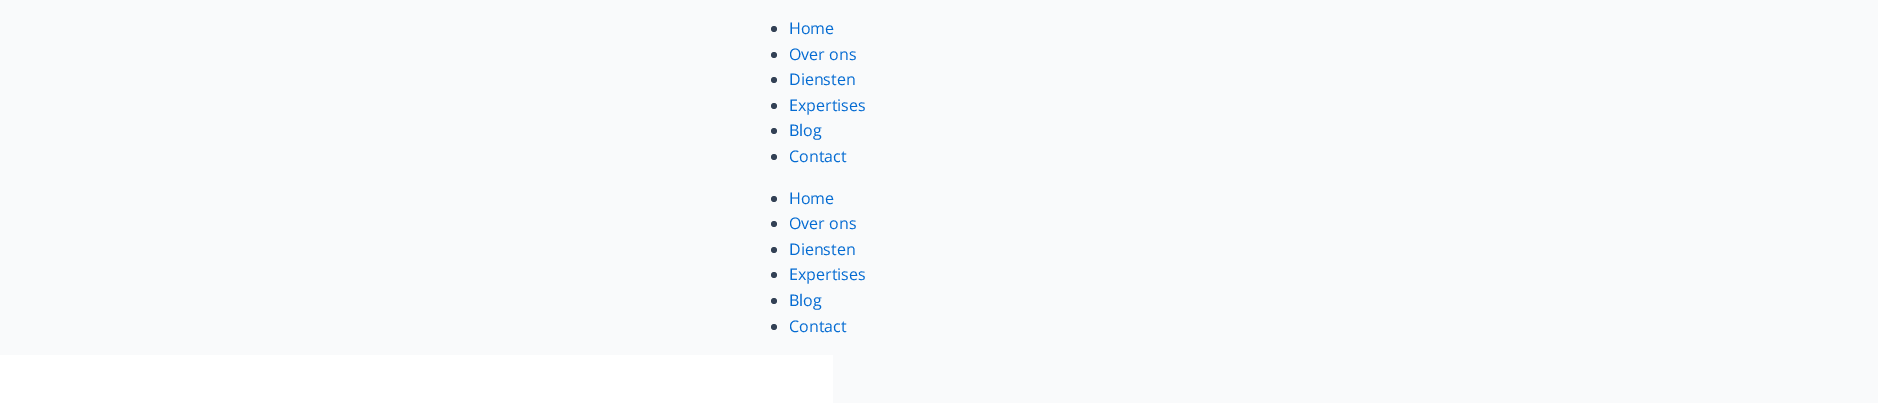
%!PS-Adobe-3.0
%%BoundingBox: 0 0 1878 403
%%LanguageLevel: 3
%%Pages: 1
%%EndComments
%%BeginProlog
/setink { 3 { 255 div 3 1 roll } repeat setrgbcolor } def
/usefont { [ exch dup neg 0 0 3 -1 roll 0 0 ] selectfont } def
/drawtext { setink usefont moveto show } def
/fillbox { setink rectfill } def
/disc { newpath 0 360 arc closepath } def
%%EndProlog
%%BeginSetup
<< /PageSize [1878 403] >> setpagedevice
%%EndSetup
%%Page: 1 1
0 403 translate 1 -1 scale
4 setmiterlimit
0 0 1878 403 249 250 251 fillbox
51 65 85 setink
774 29 3 disc fill
(Home) 789 34 /OpenSans-Regular 16 4 107 210 drawtext
51 65 85 setink
774 55 3 disc fill
(Over ons) 789 60 /OpenSans-Regular 16 4 107 210 drawtext
51 65 85 setink
774 80 3 disc fill
(Diensten) 789 85 /OpenSans-Regular 16 4 107 210 drawtext
51 65 85 setink
774 106 3 disc fill
(Expertises) 789 111 /OpenSans-Regular 16 4 107 210 drawtext
51 65 85 setink
774 131 3 disc fill
(Blog) 789 136 /OpenSans-Regular 16 4 107 210 drawtext
51 65 85 setink
774 157 3 disc fill
(Contact) 789 162 /OpenSans-Regular 16 4 107 210 drawtext
51 65 85 setink
774 199 3 disc fill
(Home) 789 204 /OpenSans-Regular 16 4 107 210 drawtext
51 65 85 setink
774 224 3 disc fill
(Over ons) 789 229 /OpenSans-Regular 16 4 107 210 drawtext
51 65 85 setink
774 250 3 disc fill
(Diensten) 789 255 /OpenSans-Regular 16 4 107 210 drawtext
51 65 85 setink
774 275 3 disc fill
(Expertises) 789 280 /OpenSans-Regular 16 4 107 210 drawtext
51 65 85 setink
774 301 3 disc fill
(Blog) 789 306 /OpenSans-Regular 16 4 107 210 drawtext
51 65 85 setink
774 327 3 disc fill
(Contact) 789 332 /OpenSans-Regular 16 4 107 210 drawtext
0 355 833 48 255 255 255 fillbox
showpage
%%EOF
